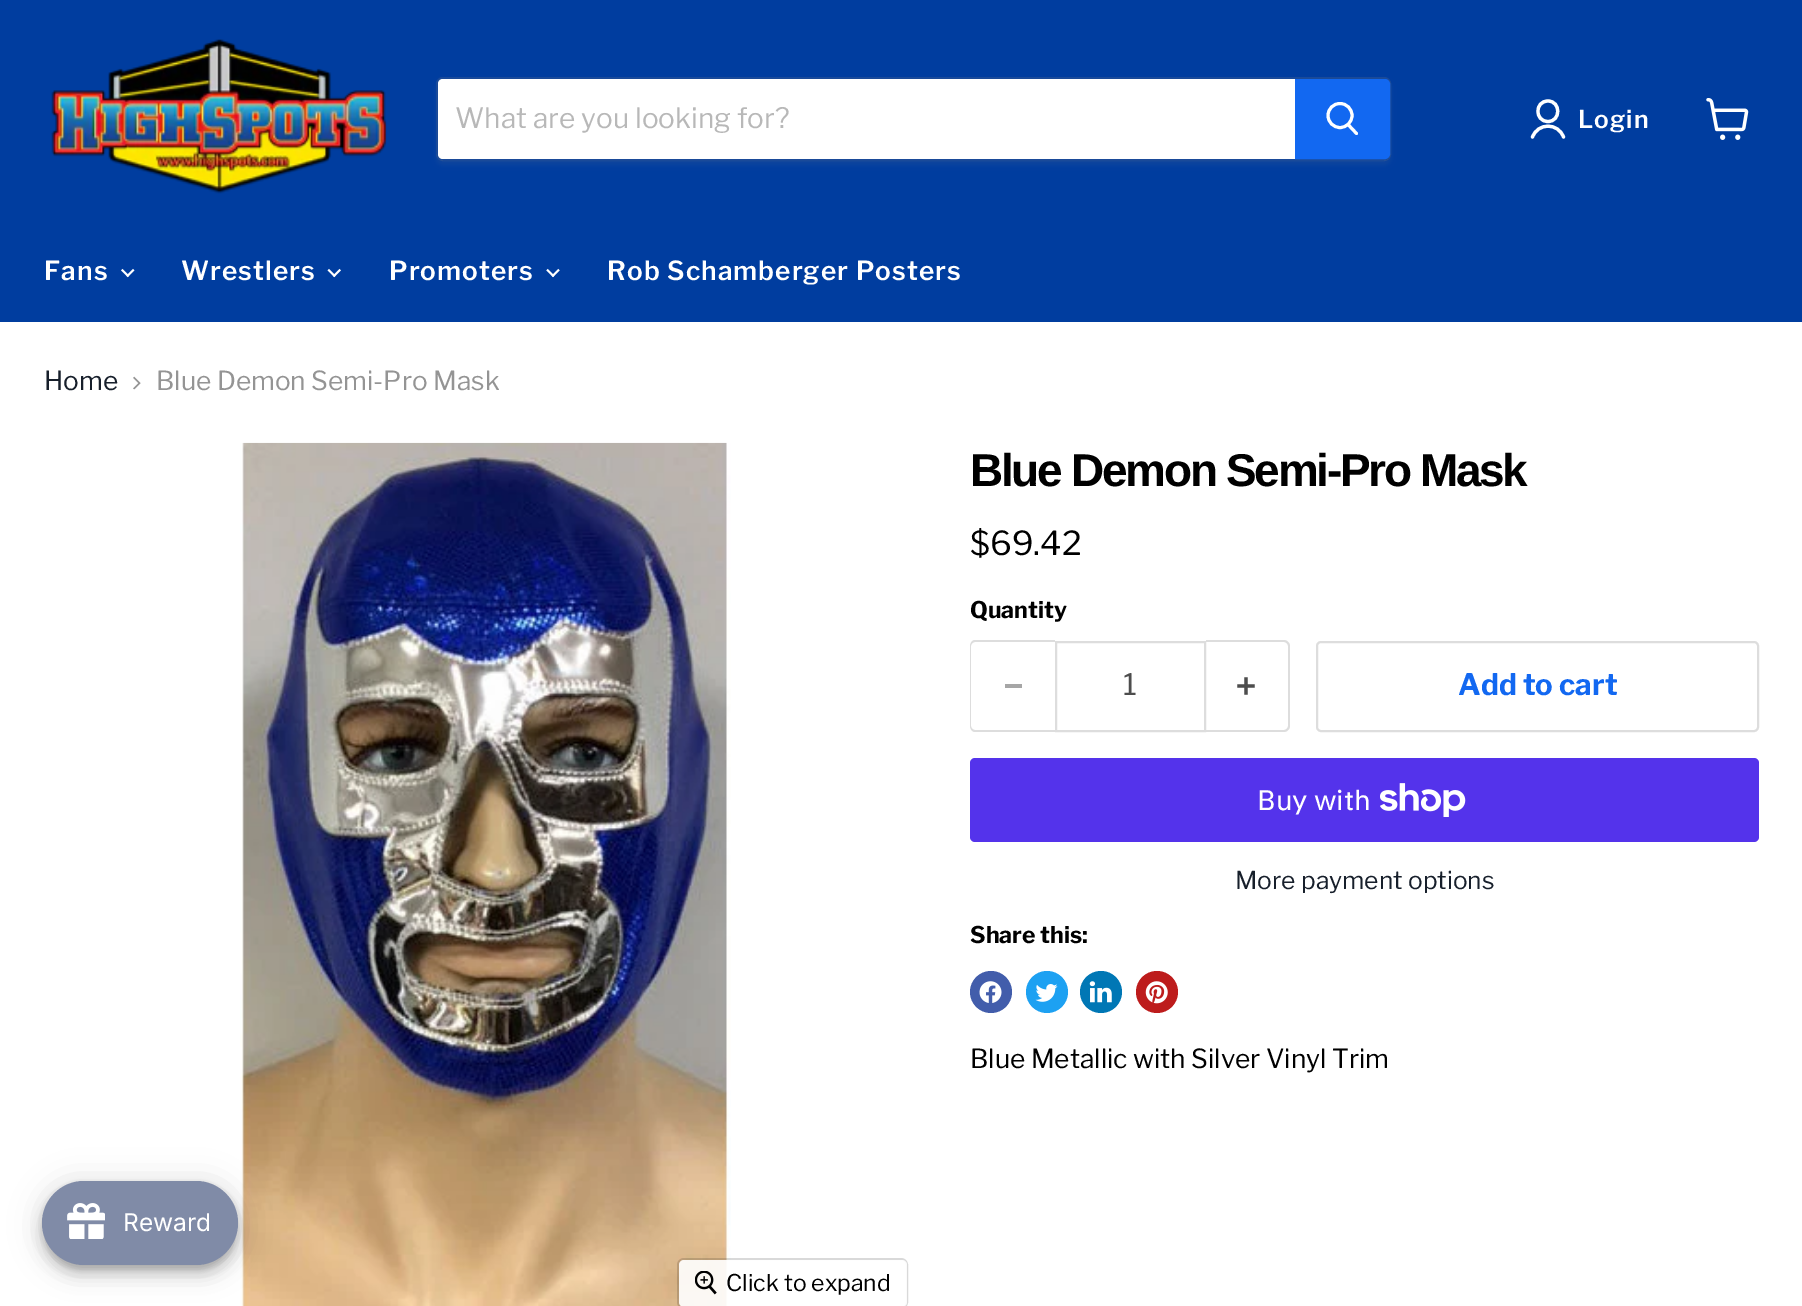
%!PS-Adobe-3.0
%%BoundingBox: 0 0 1802 1306
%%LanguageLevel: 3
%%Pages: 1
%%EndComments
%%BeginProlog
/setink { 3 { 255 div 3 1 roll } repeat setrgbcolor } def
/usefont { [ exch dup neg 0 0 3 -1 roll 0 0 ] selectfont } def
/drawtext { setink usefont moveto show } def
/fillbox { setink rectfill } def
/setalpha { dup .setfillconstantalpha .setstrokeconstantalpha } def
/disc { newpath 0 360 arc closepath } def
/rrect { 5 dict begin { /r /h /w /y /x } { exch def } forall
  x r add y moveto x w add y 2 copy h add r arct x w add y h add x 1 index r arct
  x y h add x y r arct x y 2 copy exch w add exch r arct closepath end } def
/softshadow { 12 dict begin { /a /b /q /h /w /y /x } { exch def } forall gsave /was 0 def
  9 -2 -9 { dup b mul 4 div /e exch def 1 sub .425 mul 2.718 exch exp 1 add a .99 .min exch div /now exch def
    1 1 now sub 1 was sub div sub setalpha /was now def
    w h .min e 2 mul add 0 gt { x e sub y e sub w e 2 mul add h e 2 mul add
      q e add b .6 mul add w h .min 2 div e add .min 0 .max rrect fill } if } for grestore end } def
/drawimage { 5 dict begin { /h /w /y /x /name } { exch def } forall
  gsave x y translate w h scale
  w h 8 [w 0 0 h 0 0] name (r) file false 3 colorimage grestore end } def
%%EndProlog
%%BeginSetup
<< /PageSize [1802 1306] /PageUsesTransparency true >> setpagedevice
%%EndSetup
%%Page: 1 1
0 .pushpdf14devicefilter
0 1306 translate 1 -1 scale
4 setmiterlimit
0 0 1802 1306 255 255 255 fillbox
0 0 1802 322 0 61 159 fillbox
(assets/img1.rgb) 51 39 336 155 drawimage
gsave
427 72 moveto 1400 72 lineto 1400 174 lineto 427 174 lineto closepath 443 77 moveto 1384 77 lineto 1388 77 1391 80 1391 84 curveto 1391 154 lineto 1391 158 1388 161 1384 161 curveto 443 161 lineto 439 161 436 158 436 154 curveto 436 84 lineto 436 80 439 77 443 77 curveto closepath eoclip newpath
128 128 128 setink
436 81 955 84 7 2.5 0.11 softshadow
grestore
0.2 setalpha
128 128 128 setink
2 setlinewidth
437 78 953 82 6 rrect stroke
1 setalpha
255 255 255 setink
443 79 moveto 1295 79 lineto 1295 159 lineto 443 159 lineto 440 159 438 157 438 154 curveto 438 84 lineto 438 81 440 79 443 79 curveto closepath fill
(What are you looking for?) 455 128 /LibreFranklin-Regular 28 184 184 184 drawtext
18 104 241 setink
1296 80 moveto 1385 80 lineto 1387 80 1389 82 1389 84 curveto 1389 154 lineto 1389 156 1387 158 1385 158 curveto 1296 158 lineto closepath gsave fill grestore
stroke
255 255 255 setink
3 setlinewidth
1 setlinecap
1356.5 133.5 moveto 1348.5 125 lineto stroke
0 setlinecap
1340 115.5 12 disc stroke
3.2 setlinewidth
1 setlinecap
1 setlinejoin
1548 121.5 moveto 1561 121.5 1561 101 1548 101 curveto 1534.5 101 1534.5 121.5 1548 121.5 curveto closepath 1563.5 137 moveto 1558 122.5 1538 122.5 1532.5 137 curveto stroke
/LibreFranklin-SemiBold 24.6 usefont
1578 128 moveto 1 0 (Login) ashow
(assets/img2.rgb) 1706 98 43 42 drawimage
/LibreFranklin-SemiBold 26.25 usefont
44 280 moveto 1.05 0 (Fans) ashow
(assets/img3.rgb) 121 268 14 10 drawimage
181 280 moveto 1.05 0 (Wrestlers) ashow
(assets/img4.rgb) 327 268 14 10 drawimage
389 280 moveto 1.05 0 (Promoters) ashow
(assets/img5.rgb) 546 268 14 10 drawimage
607 280 moveto 1.05 0 (Rob Schamberger Posters) ashow
(Home) 44 390 /LibreFranklin-Regular 26.25 23 31 43 drawtext
(assets/img6.rgb) 133 376 8 14 drawimage
(Blue Demon Semi-Pro Mask) 156 390 /LibreFranklin-Regular 26.25 148 148 148 drawtext
/Arimo-Bold 46 usefont
0 0 0 setink
970 486 moveto -2.3 0 (Blue Demon Semi-Pro Mask) ashow
($69.42) 970 555 /LibreFranklin-Regular 33 0 0 0 drawtext
(Quantity) 970 618 /LibreFranklin-Bold 23 0 0 0 drawtext
221 221 221 setink
975 640 moveto 1055 640 lineto 1055 732 lineto 975 732 lineto 972 732 970 729 970 726 curveto 970 646 lineto 970 643 972 640 975 640 curveto closepath 975 642 moveto 1055 642 lineto 1055 730 lineto 975 730 lineto 973 730 971 728 971 726 curveto 971 646 lineto 971 644 973 642 975 642 curveto closepath eofill
1005 684 17 4 166 166 166 fillbox
221 221 221 setink
2 setlinewidth
0 setlinecap
0 setlinejoin
1056 642 149 89 rectstroke
(1) 1123 695 /LibreFranklin-Regular 29.5 77 77 77 drawtext
221 221 221 setink
1206 640 moveto 1284 640 lineto 1287 640 1290 643 1290 646 curveto 1290 726 lineto 1290 729 1287 732 1284 732 curveto 1206 732 lineto closepath 1206 642 moveto 1284 642 lineto 1286 642 1288 644 1288 646 curveto 1288 726 lineto 1288 728 1286 730 1284 730 curveto 1206 730 lineto closepath eofill
(assets/img7.rgb) 1237 677 18 18 drawimage
1317 642 441 89 4 rrect stroke
(Add to cart) 1458 695 /LibreFranklin-Bold 29.5 18 104 241 drawtext
84 51 235 setink
970 758 789 84 5 rrect fill
(Buy with) 1257 810 /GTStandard-Regular 28 255 255 255 drawtext
(assets/img8.rgb) 1380 783 86 34 drawimage
(More payment options) 1235 889 /LibreFranklin-Regular 24.6 23 31 43 drawtext
(Share this:) 970 943 /LibreFranklin-Bold 23 0 0 0 drawtext
66 93 171 setink
991 992 21 disc fill
(assets/img9.rgb) 979 981 23 22 drawimage
29 161 242 setink
1047 992 21 disc fill
(assets/img10.rgb) 1035 984 23 18 drawimage
0 119 181 setink
1101 992 21 disc fill
(assets/img11.rgb) 1089 981 23 22 drawimage
189 28 28 setink
1157 992 21 disc fill
(assets/img12.rgb) 1145 981 23 23 drawimage
(Blue Metallic with Silver Vinyl Trim) 970 1068 /LibreFranklin-Regular 26.25 0 0 0 drawtext
(assets/img13.rgb) 240 442 491 864 drawimage
0.15 setalpha
678 1259 229 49 6 rrect stroke
0.9 setalpha
255 255 255 setink
679 1260 228 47 5 rrect fill
1 setalpha
(assets/img14.rgb) 695 1271 22 24 drawimage
(Click to expand) 726 1291 /LibreFranklin-Regular 23 0 0 0 drawtext
42 1183 196 84 42 16 0.12 softshadow
42 1192 196 84 42 9 0.14 softshadow
44 1188 192 81 40.5 4.5 0.2 softshadow
128 139 167 setink
42 1181 196 84 42 rrect fill
(assets/img15.rgb) 67 1203 38 36 drawimage
(Reward) 123 1231 /Inter-Regular 24.5 255 255 255 drawtext
.poppdf14devicefilter showpage
%%EOF
